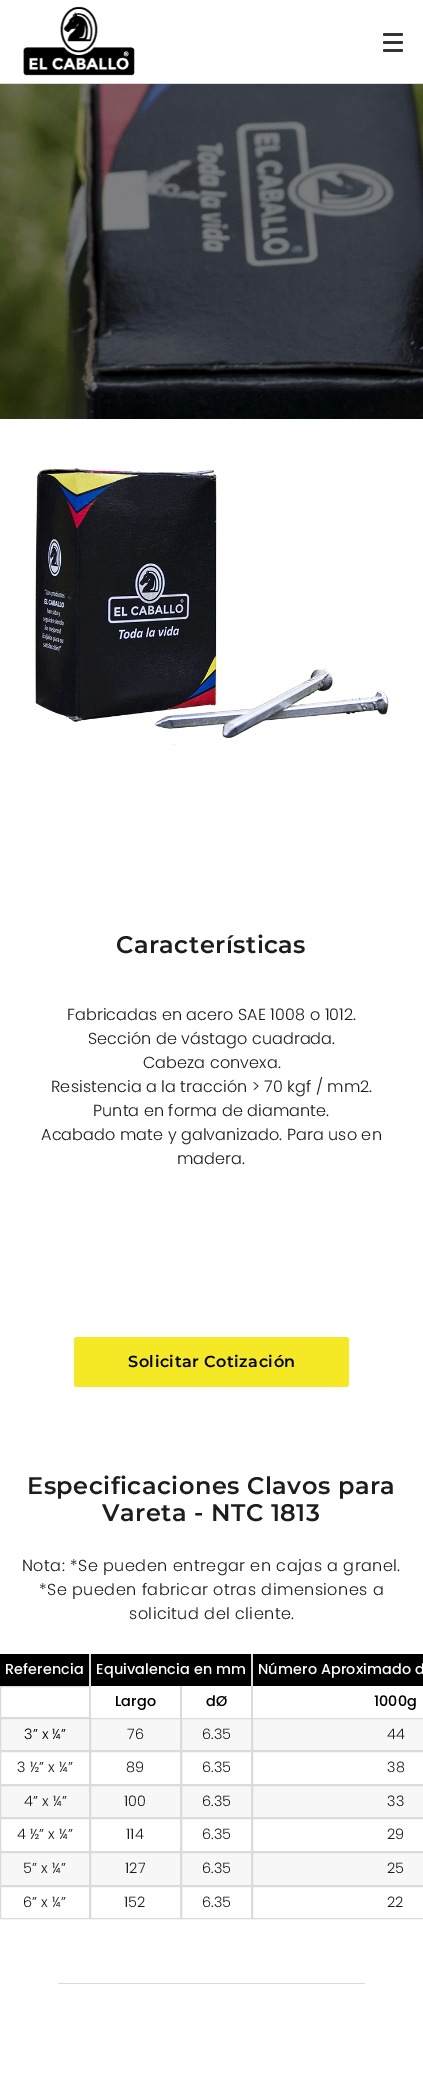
%!PS-Adobe-3.0
%%BoundingBox: 0 0 423 2078
%%LanguageLevel: 3
%%Pages: 1
%%EndComments
%%BeginProlog
/setink { 3 { 255 div 3 1 roll } repeat setrgbcolor } def
/usefont { [ exch dup neg 0 0 3 -1 roll 0 0 ] selectfont } def
/fillbox { setink rectfill } def
/rrect { 5 dict begin { /r /h /w /y /x } { exch def } forall
  x r add y moveto x w add y 2 copy h add r arct x w add y h add x 1 index r arct
  x y h add x y r arct x y 2 copy exch w add exch r arct closepath end } def
/drawimage { 5 dict begin { /h /w /y /x /name } { exch def } forall
  gsave x y translate w h scale
  w h 8 [w 0 0 h 0 0] name (r) file false 3 colorimage grestore end } def
%%EndProlog
%%BeginSetup
<< /PageSize [423 2078] >> setpagedevice
%%EndSetup
%%Page: 1 1
0 2078 translate 1 -1 scale
4 setmiterlimit
0 0 423 2078 255 255 255 fillbox
0 83 423 1 219 219 219 fillbox
(assets/img1.rgb) 23 6 112 70 drawimage
51 51 51 setink
383 41 20 3 1.5 rrect fill
383 33 20 3 1.5 rrect fill
383 49 20 3 1.5 rrect fill
(assets/img2.rgb) 0 84 423 335 drawimage
(assets/img3.rgb) 35 468 354 277 drawimage
/Montserrat-SemiBold 24 usefont
29 29 31 setink
116 953 moveto 0.5 0 (Características) ashow
/Poppins-Light 16 usefont
67 1020 moveto 0.1 0 (Fabricadas en acero SAE 1008 o 1012.) ashow
88 1044 moveto 0.1 0 (Sección de vástago cuadrada.) ashow
143 1068 moveto 0.1 0 (Cabeza convexa.) ashow
51 1092 moveto 0.1 0 (Resistencia a la tracción > 70 kgf / mm2.) ashow
93 1116 moveto 0.1 0 (Punta en forma de diamante.) ashow
41 1140 moveto 0.1 0 (Acabado mate y galvanizado. Para uso en) ashow
177 1164 moveto 0.1 0 (madera.) ashow
244 233 36 setink
74 1337 275 50 3 rrect fill
/Montserrat-SemiBold 16 usefont
0 0 0 setink
128 1367 moveto 0.5 0 (Solicitar Cotización) ashow
/Montserrat-SemiBold 24 usefont
29 29 31 setink
27 1494 moveto 0.5 0 (Especificaciones Clavos para) ashow
102 1521 moveto 0.5 0 (Vareta - NTC 1813) ashow
/Poppins-Light 16 usefont
22 1571 moveto 0.5 0 (Nota: *Se pueden entregar en cajas a granel.) ashow
39 1595 moveto 0.5 0 (*Se pueden fabricar otras dimensiones a) ashow
129 1619 moveto 0.5 0 (solicitud del cliente.) ashow
0 1654 89 32 0 0 0 fillbox
89 1654 2 32 219 219 219 fillbox
/Poppins-Medium 14.4 usefont
255 255 255 setink
5 1674 moveto 0.1 0 (Referencia) ashow
91 1654 160 32 0 0 0 fillbox
251 1654 2 32 219 219 219 fillbox
255 255 255 setink
96 1674 moveto 0.1 0 (Equivalencia en mm) ashow
253 1654 170 32 0 0 0 fillbox
255 255 255 setink
258 1674 moveto 0.1 0 (Número Aproximado d) ashow
219 219 219 setink
0.5 1686.5 89 31 rectstroke
180 1686 2 32 219 219 219 fillbox
90 1686 1 32 219 219 219 fillbox
0 0 0 setink
115 1706 moveto 0.1 0 (Largo) ashow
251 1686 2 32 219 219 219 fillbox
0 0 0 setink
206 1706 moveto 0.1 0 (dØ) ashow
374 1706 moveto 0.1 0 (1000g) ashow
247 247 247 setink
0.5 1718.5 moveto 89.5 1718.5 lineto 89.5 1750.5 lineto 0.5 1750.5 lineto closepath gsave fill grestore
219 219 219 setink
stroke
/Poppins-Light 14.4 usefont
0 0 0 setink
24 1739 moveto 0.1 0 (3” x ¼”) ashow
247 247 247 setink
90.5 1718.5 moveto 180.5 1718.5 lineto 180.5 1750.5 lineto 90.5 1750.5 lineto closepath gsave fill grestore
219 219 219 setink
stroke
29 29 31 setink
127 1739 moveto 0.1 0 (76) ashow
247 247 247 setink
181.5 1718.5 moveto 251.5 1718.5 lineto 251.5 1750.5 lineto 181.5 1750.5 lineto closepath gsave fill grestore
219 219 219 setink
stroke
29 29 31 setink
202 1739 moveto 0.1 0 (6.35) ashow
247 247 247 setink
252.5 1718.5 moveto 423.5 1718.5 lineto 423.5 1750.5 lineto 252.5 1750.5 lineto closepath gsave fill grestore
219 219 219 setink
stroke
29 29 31 setink
387 1739 moveto 0.1 0 (44) ashow
219 219 219 setink
0.5 1751.5 89 33 rectstroke
29 29 31 setink
17 1772 moveto 0.1 0 (3 ½” x ¼”) ashow
219 219 219 setink
90.5 1751.5 90 33 rectstroke
29 29 31 setink
126 1772 moveto 0.1 0 (89) ashow
219 219 219 setink
181.5 1751.5 70 33 rectstroke
29 29 31 setink
202 1772 moveto 0.1 0 (6.35) ashow
219 219 219 setink
252.5 1751.5 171 33 rectstroke
29 29 31 setink
387 1772 moveto 0.1 0 (38) ashow
247 247 247 setink
0.5 1785.5 moveto 89.5 1785.5 lineto 89.5 1817.5 lineto 0.5 1817.5 lineto closepath gsave fill grestore
219 219 219 setink
stroke
29 29 31 setink
24 1806 moveto 0.1 0 (4” x ¼”) ashow
247 247 247 setink
90.5 1785.5 moveto 180.5 1785.5 lineto 180.5 1817.5 lineto 90.5 1817.5 lineto closepath gsave fill grestore
219 219 219 setink
stroke
29 29 31 setink
124 1806 moveto 0.1 0 (100) ashow
247 247 247 setink
181.5 1785.5 moveto 251.5 1785.5 lineto 251.5 1817.5 lineto 181.5 1817.5 lineto closepath gsave fill grestore
219 219 219 setink
stroke
29 29 31 setink
202 1806 moveto 0.1 0 (6.35) ashow
247 247 247 setink
252.5 1785.5 moveto 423.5 1785.5 lineto 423.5 1817.5 lineto 252.5 1817.5 lineto closepath gsave fill grestore
219 219 219 setink
stroke
29 29 31 setink
387 1806 moveto 0.1 0 (33) ashow
219 219 219 setink
0.5 1818.5 89 33 rectstroke
29 29 31 setink
17 1839 moveto 0.1 0 (4 ½” x ¼”) ashow
219 219 219 setink
90.5 1818.5 90 33 rectstroke
29 29 31 setink
126 1839 moveto 0.1 0 (114) ashow
219 219 219 setink
181.5 1818.5 70 33 rectstroke
29 29 31 setink
202 1839 moveto 0.1 0 (6.35) ashow
219 219 219 setink
252.5 1818.5 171 33 rectstroke
29 29 31 setink
387 1839 moveto 0.1 0 (29) ashow
247 247 247 setink
0.5 1852.5 moveto 89.5 1852.5 lineto 89.5 1885.5 lineto 0.5 1885.5 lineto closepath gsave fill grestore
219 219 219 setink
stroke
29 29 31 setink
23 1873 moveto 0.1 0 (5” x ¼”) ashow
247 247 247 setink
90.5 1852.5 moveto 180.5 1852.5 lineto 180.5 1885.5 lineto 90.5 1885.5 lineto closepath gsave fill grestore
219 219 219 setink
stroke
29 29 31 setink
125 1873 moveto 0.1 0 (127) ashow
247 247 247 setink
181.5 1852.5 moveto 251.5 1852.5 lineto 251.5 1885.5 lineto 181.5 1885.5 lineto closepath gsave fill grestore
219 219 219 setink
stroke
29 29 31 setink
202 1873 moveto 0.1 0 (6.35) ashow
247 247 247 setink
252.5 1852.5 moveto 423.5 1852.5 lineto 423.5 1885.5 lineto 252.5 1885.5 lineto closepath gsave fill grestore
219 219 219 setink
stroke
29 29 31 setink
387 1873 moveto 0.1 0 (25) ashow
219 219 219 setink
0.5 1886.5 89 32 rectstroke
29 29 31 setink
23 1907 moveto 0.1 0 (6” x ¼”) ashow
219 219 219 setink
90.5 1886.5 90 32 rectstroke
29 29 31 setink
124 1907 moveto 0.1 0 (152) ashow
219 219 219 setink
181.5 1886.5 70 32 rectstroke
29 29 31 setink
202 1907 moveto 0.1 0 (6.35) ashow
219 219 219 setink
252.5 1886.5 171 32 rectstroke
29 29 31 setink
387 1907 moveto 0.1 0 (22) ashow
58 1983 307 1 219 219 219 fillbox
showpage
%%EOF
